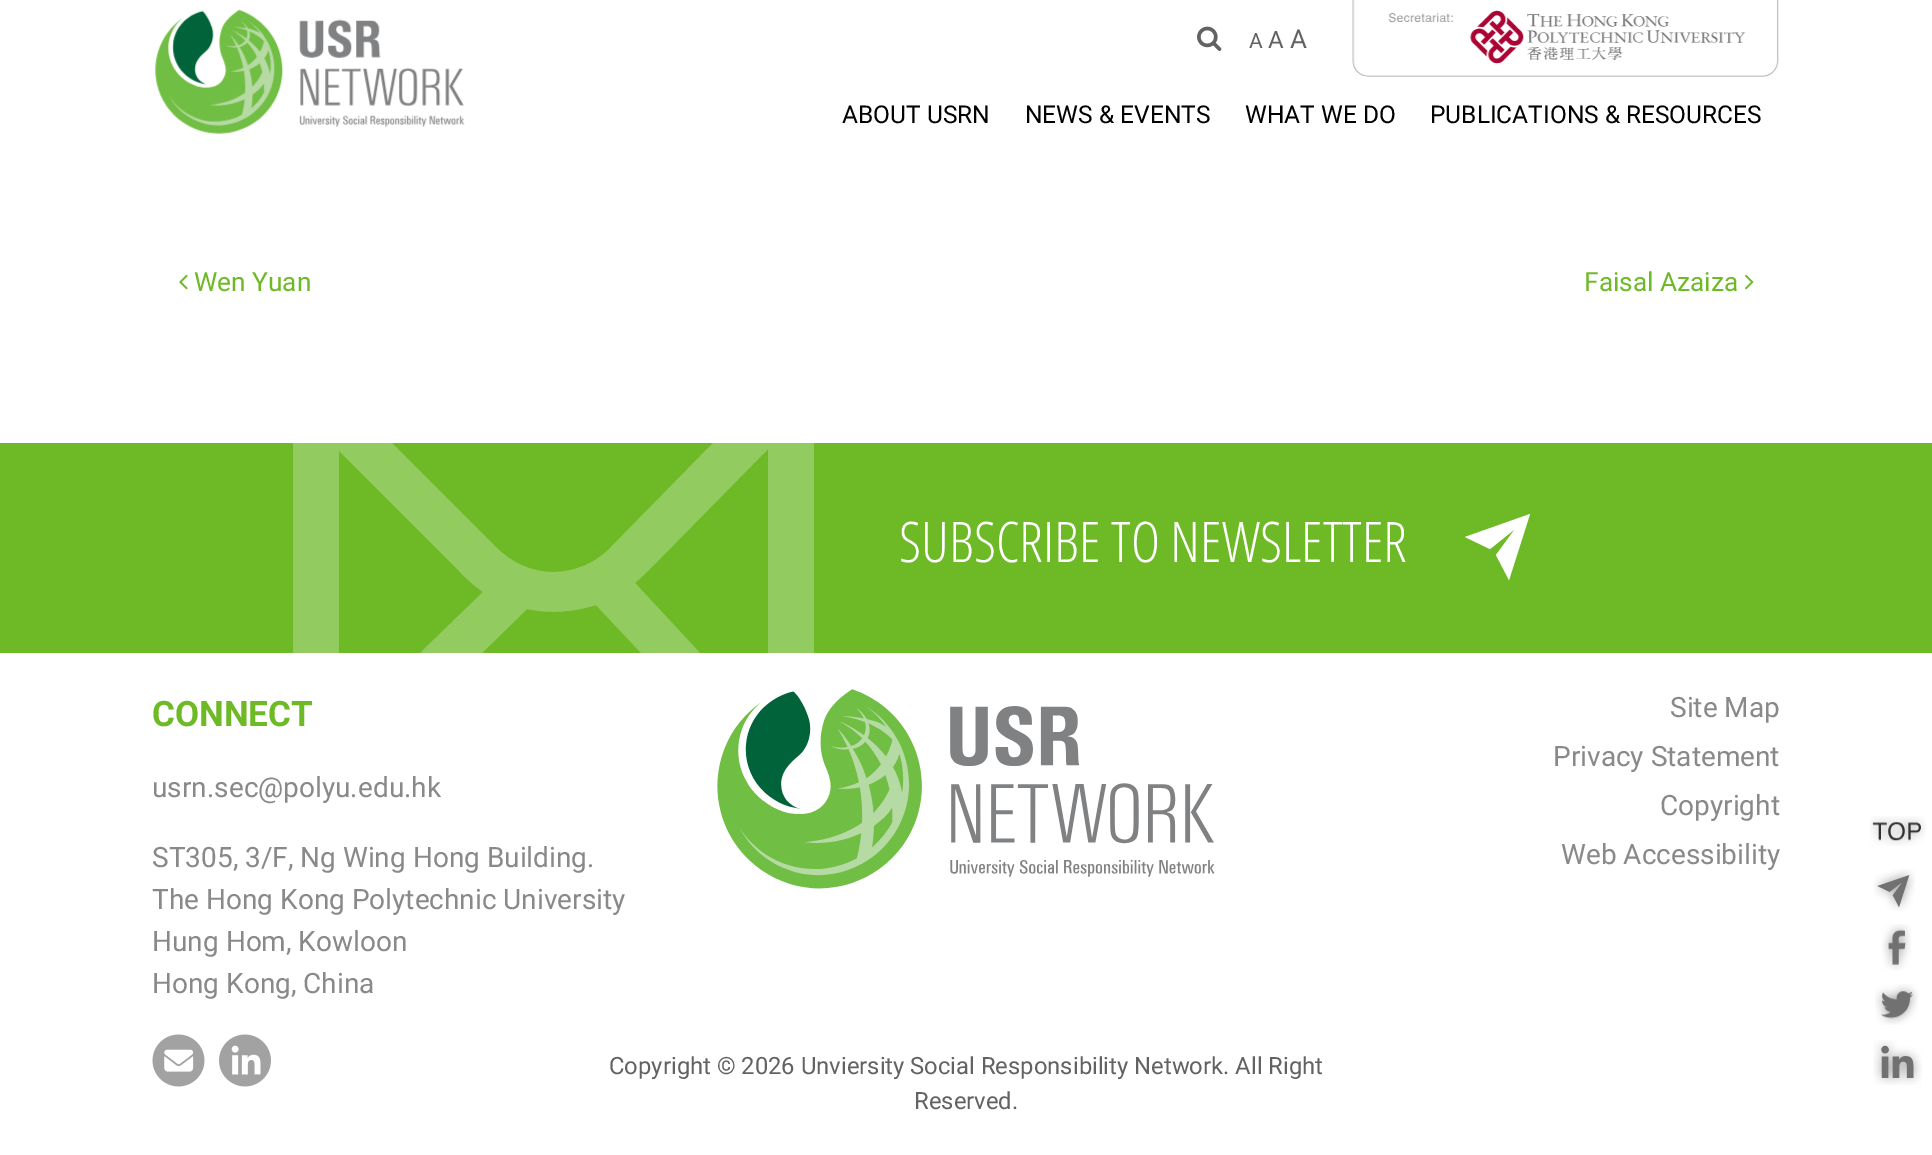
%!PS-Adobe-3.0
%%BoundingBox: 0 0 1932 1155
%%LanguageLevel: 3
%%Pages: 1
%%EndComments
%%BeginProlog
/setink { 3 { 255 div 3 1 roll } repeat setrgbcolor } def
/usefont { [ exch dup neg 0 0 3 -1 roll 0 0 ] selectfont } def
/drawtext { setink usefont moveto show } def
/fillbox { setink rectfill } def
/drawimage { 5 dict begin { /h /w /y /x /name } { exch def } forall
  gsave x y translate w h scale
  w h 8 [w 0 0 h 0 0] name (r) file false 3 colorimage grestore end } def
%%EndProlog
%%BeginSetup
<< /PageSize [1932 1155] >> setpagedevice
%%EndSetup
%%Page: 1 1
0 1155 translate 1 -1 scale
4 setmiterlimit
0 0 1932 1155 255 255 255 fillbox
(assets/img1.rgb) 155 9 310 125 drawimage
(assets/img2.rgb) 1197 26 25 25 drawimage
(A) 1249 48 /Roboto-Regular 21 98 98 98 drawtext
(A) 1268 48 /Roboto-Regular 24 98 98 98 drawtext
(A) 1290 48 /Roboto-Regular 26 98 98 98 drawtext
(assets/img3.rgb) 1352 0 427 77 drawimage
(ABOUT USRN) 842 123 /Roboto-Regular 24.5 0 0 0 drawtext
(NEWS & EVENTS) 1025 123 /Roboto-Regular 24.5 0 0 0 drawtext
(WHAT WE DO) 1245 123 /Roboto-Regular 24.5 0 0 0 drawtext
(PUBLICATIONS & RESOURCES) 1430 123 /Roboto-Regular 24.5 0 0 0 drawtext
(assets/img4.rgb) 179 274 9 16 drawimage
(Wen Yuan) 194 291 /Roboto-Regular 26.25 110 185 38 drawtext
(Faisal Azaiza) 1584 291 /Roboto-Regular 26.25 110 185 38 drawtext
(assets/img5.rgb) 1745 274 9 16 drawimage
0 443 1932 210 110 185 38 fillbox
146 203 96 setink
814 443 moveto 713 443 lineto 611 547 lineto 596 563 575 572 553 572 curveto 532 572 511 563 495 546 curveto 392 443 lineto 293 443 lineto 293 653 lineto 339 653 lineto 339 451 lineto 460 572 lineto 467 580 475 586 483 592 curveto 420 653 lineto 482 653 lineto 527 609 lineto 550 614 574 612 596 605 curveto 641 653 lineto 700 653 lineto 635 583 lineto 647 572 lineto 768 449 lineto 768 653 lineto 814 653 lineto closepath fill
(SUBSCRIBE TO NEWSLETTER) 899 562 /OpenSansCondensed-Light 56 255 255 255 drawtext
1465 537 moveto 1490 549 lineto 1515 529 lineto 1496 555 lineto 1509 580 lineto 1530 514 lineto closepath fill
(CONNECT) 152 726 /Roboto-Bold 35 110 185 38 drawtext
(usrn.sec@polyu.edu.hk) 152 797 /Roboto-Regular 28 137 137 137 drawtext
(ST305, 3/F, Ng Wing Hong Building.) 152 867 /Roboto-Regular 28 137 137 137 drawtext
(The Hong Kong Polytechnic University) 152 909 /Roboto-Regular 28 137 137 137 drawtext
(Hung Hom, Kowloon) 152 951 /Roboto-Regular 28 137 137 137 drawtext
(Hong Kong, China) 152 993 /Roboto-Regular 28 137 137 137 drawtext
(assets/img6.rgb) 717 689 498 200 drawimage
(Site Map) 1670 717 /Roboto-Regular 28 137 137 137 drawtext
(Privacy Statement) 1553 766 /Roboto-Regular 28 137 137 137 drawtext
(Copyright) 1660 815 /Roboto-Regular 28 137 137 137 drawtext
(Web Accessibility) 1561 864 /Roboto-Regular 28 137 137 137 drawtext
(assets/img7.rgb) 152 1034 53 53 drawimage
(assets/img8.rgb) 219 1034 52 53 drawimage
(Copyright © 2026 Unviersity Social Responsibility Network. All Right) 609 1074 /Roboto-Regular 23.8 98 98 98 drawtext
(Reserved.) 914 1109 /Roboto-Regular 23.8 98 98 98 drawtext
(assets/img9.rgb) 1870 816 56 30 drawimage
(assets/img10.rgb) 1874 869 41 42 drawimage
(assets/img11.rgb) 1882 924 29 46 drawimage
(assets/img12.rgb) 1875 984 43 41 drawimage
(assets/img13.rgb) 1873 1040 49 45 drawimage
showpage
%%EOF
